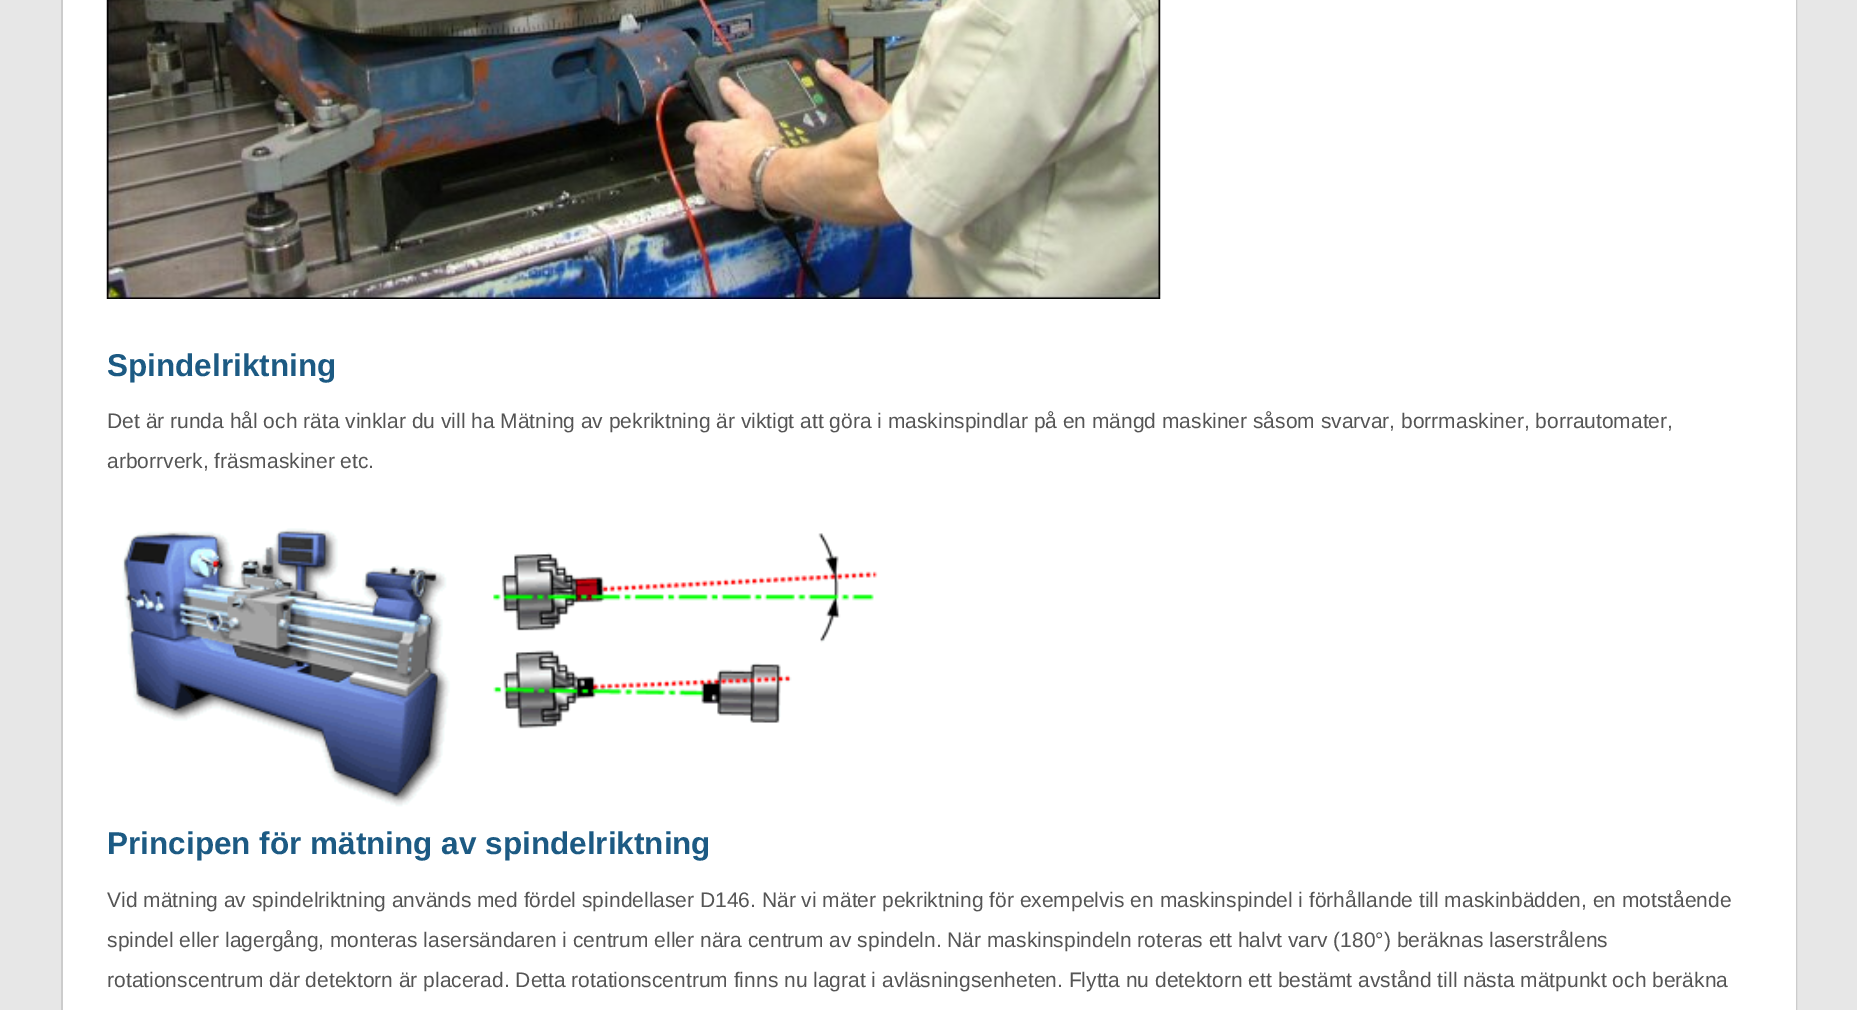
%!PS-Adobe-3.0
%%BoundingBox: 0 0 1857 1010
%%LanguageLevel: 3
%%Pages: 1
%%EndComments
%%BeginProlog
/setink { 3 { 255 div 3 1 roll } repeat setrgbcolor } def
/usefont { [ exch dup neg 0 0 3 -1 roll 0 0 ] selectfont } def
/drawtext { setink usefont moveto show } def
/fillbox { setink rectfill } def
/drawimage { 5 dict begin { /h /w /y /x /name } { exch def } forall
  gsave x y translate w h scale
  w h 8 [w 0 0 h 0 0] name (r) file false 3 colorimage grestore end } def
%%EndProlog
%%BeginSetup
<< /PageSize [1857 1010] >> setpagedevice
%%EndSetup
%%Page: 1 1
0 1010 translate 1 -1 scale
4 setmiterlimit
0 0 1857 1010 231 231 231 fillbox
204 204 204 setink
2 setlinewidth
62 -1 1734 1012 rectstroke
63 0 1733 1010 255 255 255 fillbox
(assets/img1.rgb) 106 0 1055 299 drawimage
(Spindelriktning) 107 376 /LiberationSans-Bold 31.5 28 90 131 drawtext
(Det är runda hål och räta vinklar du vill ha Mätning av pekriktning är viktigt att göra i maskinspindlar på en mängd maskiner såsom svarvar, borrmaskiner, borrautomater,) 107 428 /LiberationSans-Regular 21 85 85 85 drawtext
(arborrverk, fräsmaskiner etc.) 107 468 /LiberationSans-Regular 21 85 85 85 drawtext
(assets/img2.rgb) 122 528 756 279 drawimage
(Principen för mätning av spindelriktning) 107 854 /LiberationSans-Bold 31.5 28 90 131 drawtext
(Vid mätning av spindelriktning används med fördel spindellaser D146. När vi mäter pekriktning för exempelvis en maskinspindel i förhållande till maskinbädden, en motstående) 107 907 /LiberationSans-Regular 21 85 85 85 drawtext
(spindel eller lagergång, monteras lasersändaren i centrum eller nära centrum av spindeln. När maskinspindeln roteras ett halvt varv \(180°\) beräknas laserstrålens) 107 947 /LiberationSans-Regular 21 85 85 85 drawtext
(rotationscentrum där detektorn är placerad. Detta rotationscentrum finns nu lagrat i avläsningsenheten. Flytta nu detektorn ett bestämt avstånd till nästa mätpunkt och beräkna) 107 987 /LiberationSans-Regular 21 85 85 85 drawtext
showpage
%%EOF
